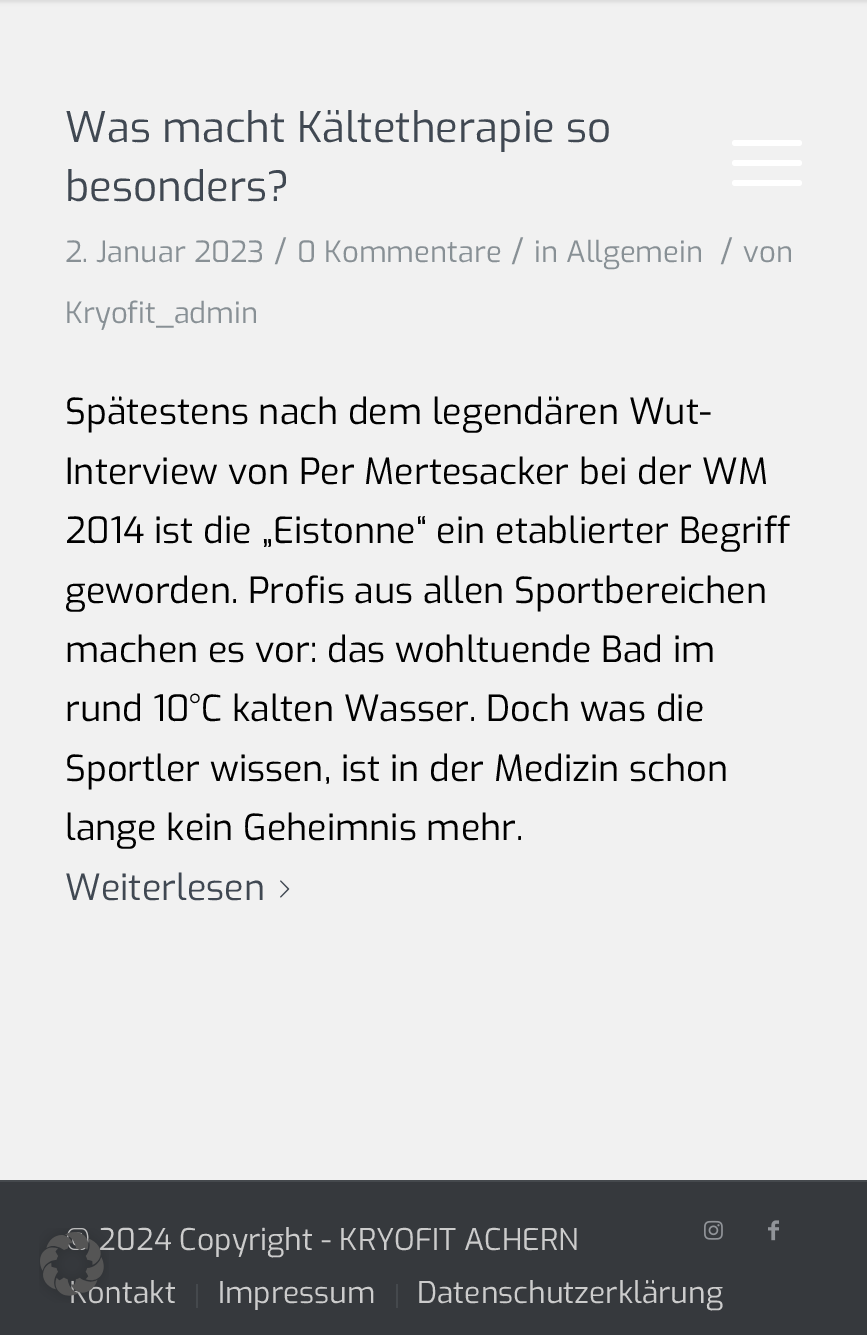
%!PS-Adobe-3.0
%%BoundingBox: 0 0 867 1335
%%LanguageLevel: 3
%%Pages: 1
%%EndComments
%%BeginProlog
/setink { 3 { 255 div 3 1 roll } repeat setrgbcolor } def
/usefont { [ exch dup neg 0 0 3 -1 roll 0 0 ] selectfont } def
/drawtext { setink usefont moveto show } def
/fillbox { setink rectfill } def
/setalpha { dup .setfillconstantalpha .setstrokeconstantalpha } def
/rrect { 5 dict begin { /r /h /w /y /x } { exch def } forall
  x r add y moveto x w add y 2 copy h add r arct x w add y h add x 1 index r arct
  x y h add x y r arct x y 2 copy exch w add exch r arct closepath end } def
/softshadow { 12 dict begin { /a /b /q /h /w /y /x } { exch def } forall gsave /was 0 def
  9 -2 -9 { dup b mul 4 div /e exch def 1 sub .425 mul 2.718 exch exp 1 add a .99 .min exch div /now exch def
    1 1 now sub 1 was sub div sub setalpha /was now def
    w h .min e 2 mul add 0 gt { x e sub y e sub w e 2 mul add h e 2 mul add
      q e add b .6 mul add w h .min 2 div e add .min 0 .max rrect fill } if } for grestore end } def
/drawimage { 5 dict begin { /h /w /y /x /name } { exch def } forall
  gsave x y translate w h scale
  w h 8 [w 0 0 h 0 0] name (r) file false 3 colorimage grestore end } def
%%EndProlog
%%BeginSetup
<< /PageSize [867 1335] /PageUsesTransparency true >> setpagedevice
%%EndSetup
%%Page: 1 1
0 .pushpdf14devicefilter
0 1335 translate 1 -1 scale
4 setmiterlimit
0 0 867 1335 241 241 241 fillbox
0 0 0 setink
-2 -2 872 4 0 2 0.1 softshadow
255 255 255 setink
732 160 70 6 3 rrect fill
732 140 70 6 3 rrect fill
732 180 70 6 3 rrect fill
(Was macht Kältetherapie so) 65 142 /Exo-Regular 42 64 72 82 drawtext
(besonders?) 65 201 /Exo-Regular 42 64 72 82 drawtext
(2. Januar 2023) 65 262 /Exo-Regular 29.25 136 144 149 drawtext
(/) 274 262 /Exo-Regular 32 136 144 149 drawtext
(0 Kommentare) 297 262 /Exo-Regular 29.25 136 144 149 drawtext
(/) 511 262 /Exo-Regular 32 136 144 149 drawtext
(in Allgemein) 534 262 /Exo-Regular 29.25 136 144 149 drawtext
(/) 720 262 /Exo-Regular 32 136 144 149 drawtext
(von) 743 262 /Exo-Regular 29.25 136 144 149 drawtext
(Kryofit_admin) 65 323 /Exo-Regular 29.25 136 144 149 drawtext
(Spätestens nach dem legendären Wut-) 65 424 /Exo-Regular 36 0 0 0 drawtext
(Interview von Per Mertesacker bei der WM) 65 484 /Exo-Regular 36 0 0 0 drawtext
(2014 ist die „Eistonne“ ein etablierter Begriff) 65 543 /Exo-Regular 36 0 0 0 drawtext
(geworden. Profis aus allen Sportbereichen) 65 603 /Exo-Regular 36 0 0 0 drawtext
(machen es vor: das wohltuende Bad im) 65 662 /Exo-Regular 36 0 0 0 drawtext
(rund 10°C kalten Wasser. Doch was die) 65 721 /Exo-Regular 36 0 0 0 drawtext
(Sportler wissen, ist in der Medizin schon) 65 781 /Exo-Regular 36 0 0 0 drawtext
(lange kein Geheimnis mehr.) 65 840 /Exo-Regular 36 0 0 0 drawtext
(Weiterlesen) 65 900 /Exo-Regular 36 64 72 82 drawtext
(assets/img1.rgb) 280 880 10 18 drawimage
0 1182 867 153 54 57 61 fillbox
0 1180 867 2 69 73 77 fillbox
(© 2024 Copyright - KRYOFIT ACHERN) 65 1250 /Exo-Regular 30 204 204 204 drawtext
(assets/img2.rgb) 704 1220 19 20 drawimage
(assets/img3.rgb) 768 1220 11 21 drawimage
(Kontakt) 69 1303 /Exo-Regular 30 204 204 204 drawtext
196 1284 2 24 69 73 77 fillbox
(Impressum) 218 1303 /Exo-Regular 30 204 204 204 drawtext
396 1284 2 24 69 73 77 fillbox
(Datenschutzerklärung) 417 1303 /Exo-Regular 30 204 204 204 drawtext
(assets/img4.rgb) 39 1228 70 75 drawimage
.poppdf14devicefilter showpage
%%EOF
